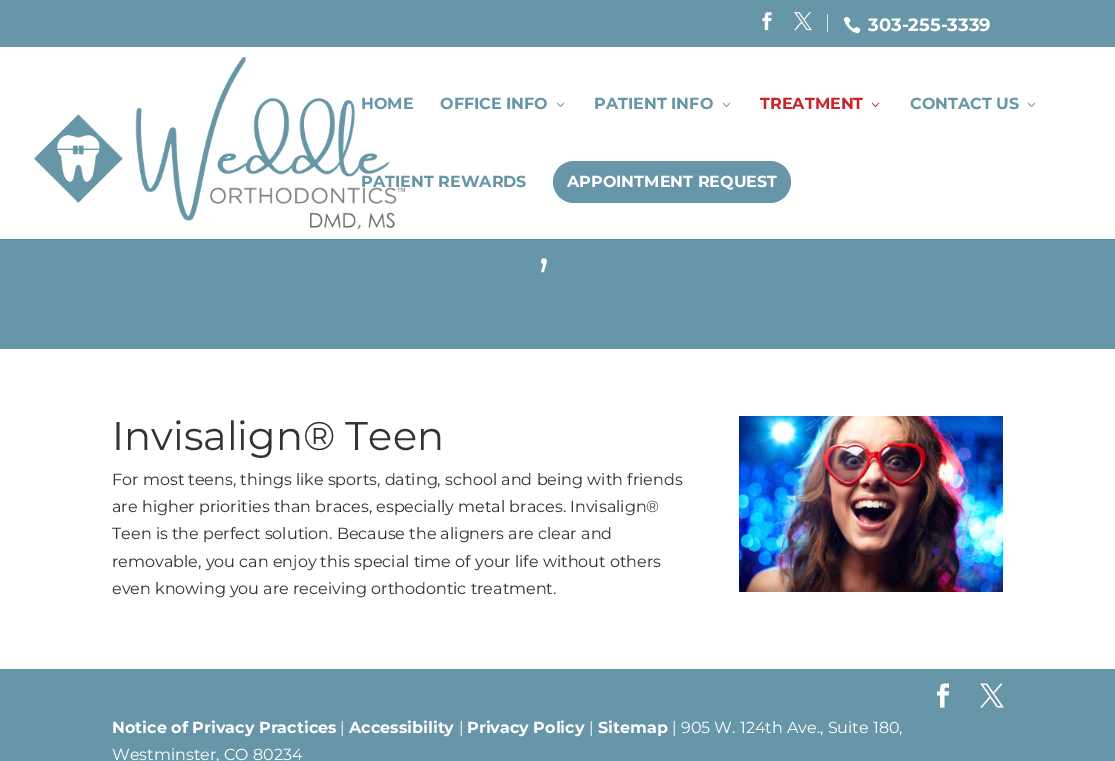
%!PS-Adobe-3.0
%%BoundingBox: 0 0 1115 761
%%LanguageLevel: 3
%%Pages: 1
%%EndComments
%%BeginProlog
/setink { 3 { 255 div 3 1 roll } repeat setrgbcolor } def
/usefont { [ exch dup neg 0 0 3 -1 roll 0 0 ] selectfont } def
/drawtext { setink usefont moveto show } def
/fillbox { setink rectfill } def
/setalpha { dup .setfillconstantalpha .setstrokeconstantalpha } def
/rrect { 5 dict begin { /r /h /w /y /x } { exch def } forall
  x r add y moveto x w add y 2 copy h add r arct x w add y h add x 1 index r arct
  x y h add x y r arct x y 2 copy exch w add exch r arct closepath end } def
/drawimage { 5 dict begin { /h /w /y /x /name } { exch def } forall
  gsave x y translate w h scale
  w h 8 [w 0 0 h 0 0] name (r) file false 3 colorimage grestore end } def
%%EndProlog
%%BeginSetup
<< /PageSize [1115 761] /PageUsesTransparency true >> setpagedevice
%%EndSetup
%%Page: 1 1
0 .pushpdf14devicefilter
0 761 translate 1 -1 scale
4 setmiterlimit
0 0 1115 761 103 150 168 fillbox
827 14 1 18 217 229 233 fillbox
(assets/img1.rgb) 762 12 10 19 drawimage
(assets/img2.rgb) 794 12 18 19 drawimage
(assets/img3.rgb) 843 16 18 18 drawimage
(303-255-3339) 868 31 /Montserrat-Thin 18 255 255 255 drawtext
0.1 setalpha
0 239 1115 1 0 0 0 fillbox
1 setalpha
0 47 1115 192 255 255 255 fillbox
(assets/img4.rgb) 34 57 371 172 drawimage
(HOME) 361 109 /Montserrat-Thin 16 103 150 168 drawtext
(OFFICE INFO) 440 109 /Montserrat-Thin 16 103 150 168 drawtext
(assets/img5.rgb) 556 102 9 5 drawimage
(PATIENT INFO) 594 109 /Montserrat-Thin 16 103 150 168 drawtext
(assets/img5.rgb) 722 102 9 5 drawimage
(TREATMENT) 760 109 /Montserrat-Thin 16 201 36 41 drawtext
(assets/img6.rgb) 871 102 9 5 drawimage
(CONTACT US) 910 109 /Montserrat-Thin 16 103 150 168 drawtext
(assets/img5.rgb) 1027 102 9 5 drawimage
(PATIENT REWARDS) 361 187 /Montserrat-Thin 16 103 150 168 drawtext
553 161 238 42 21 rrect fill
(APPOINTMENT REQUEST) 567 187 /Montserrat-Thin 16 255 255 255 drawtext
(,) 538 264 /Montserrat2-Thin 56 255 255 255 drawtext
0 349 1115 320 255 255 255 fillbox
(Invisalign® Teen) 112 450 /Montserrat2-Thin 40 51 51 51 drawtext
(For most teens, things like sports, dating, school and being with friends) 112 485 /Montserrat2-Thin 16 51 51 51 drawtext
(are higher priorities than braces, especially metal braces. Invisalign®) 112 512 /Montserrat2-Thin 16 51 51 51 drawtext
(Teen is the perfect solution. Because the aligners are clear and) 112 539 /Montserrat2-Thin 16 51 51 51 drawtext
(removable, you can enjoy this special time of your life without others) 112 567 /Montserrat2-Thin 16 51 51 51 drawtext
(even knowing you are receiving orthodontic treatment.) 112 594 /Montserrat2-Thin 16 51 51 51 drawtext
(assets/img7.rgb) 739 416 264 176 drawimage
(assets/img8.rgb) 937 683 12 25 drawimage
(assets/img9.rgb) 980 683 24 25 drawimage
(Notice of Privacy Practices) 112 733 /Montserrat-Thin 16 255 255 255 drawtext
(|) 340 733 /Montserrat2-Thin 16 255 255 255 drawtext
(Accessibility) 349 733 /Montserrat-Thin 16 255 255 255 drawtext
(|) 459 733 /Montserrat2-Thin 16 255 255 255 drawtext
(Privacy Policy) 467 733 /Montserrat-Thin 16 255 255 255 drawtext
(|) 589 733 /Montserrat2-Thin 16 255 255 255 drawtext
(Sitemap) 598 733 /Montserrat-Thin 16 255 255 255 drawtext
(| 905 W. 124th Ave., Suite 180,) 672 733 /Montserrat2-Thin 16 255 255 255 drawtext
(Westminster, CO 80234) 112 760 /Montserrat2-Thin 16 255 255 255 drawtext
.poppdf14devicefilter showpage
%%EOF
